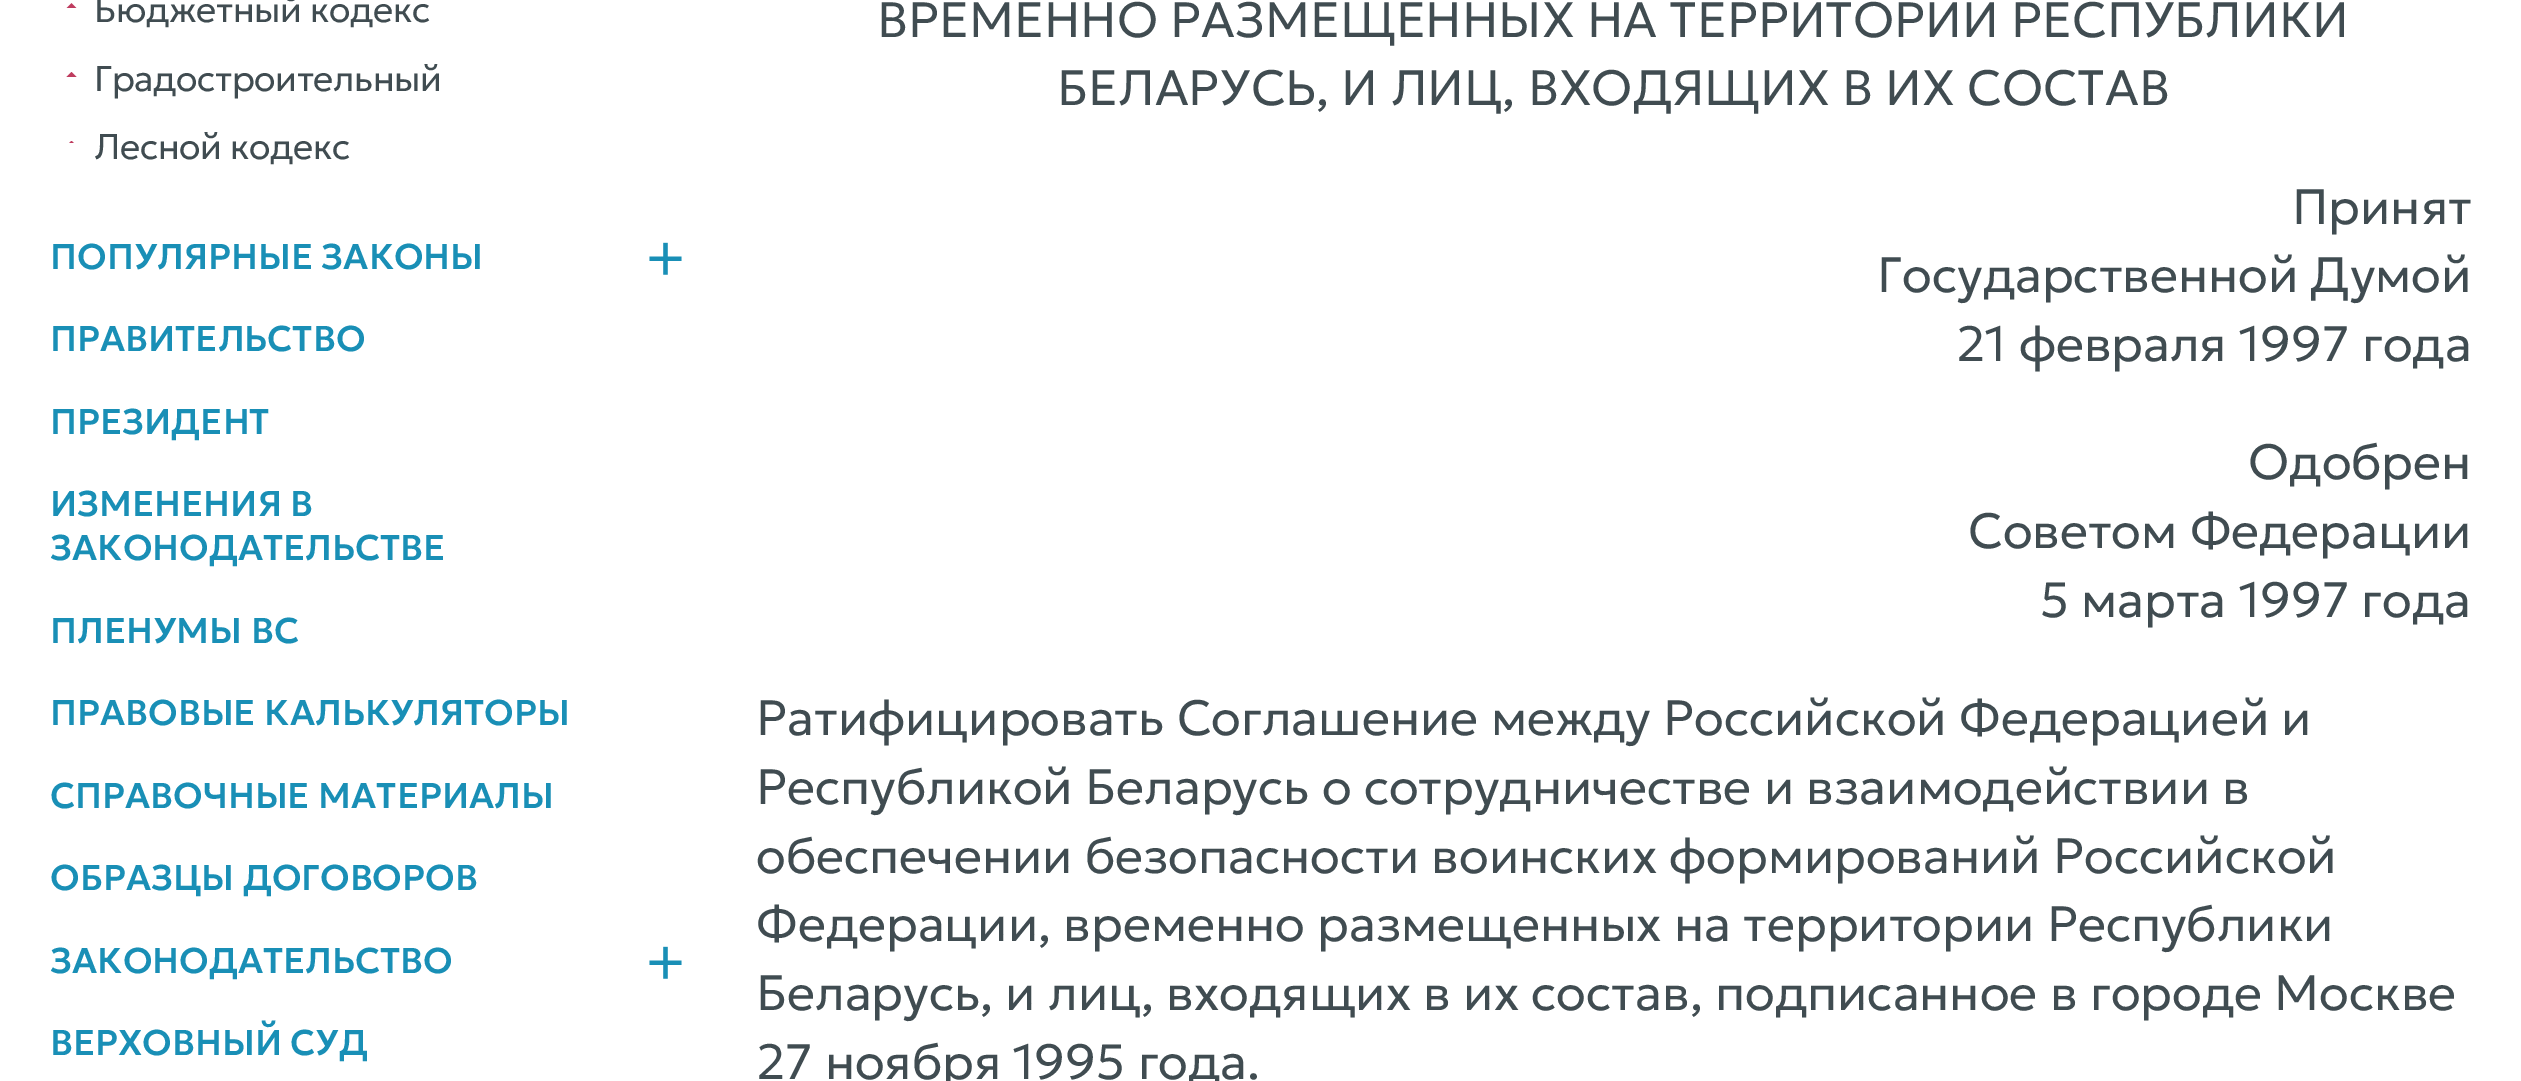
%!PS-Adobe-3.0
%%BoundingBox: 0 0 2521 1081
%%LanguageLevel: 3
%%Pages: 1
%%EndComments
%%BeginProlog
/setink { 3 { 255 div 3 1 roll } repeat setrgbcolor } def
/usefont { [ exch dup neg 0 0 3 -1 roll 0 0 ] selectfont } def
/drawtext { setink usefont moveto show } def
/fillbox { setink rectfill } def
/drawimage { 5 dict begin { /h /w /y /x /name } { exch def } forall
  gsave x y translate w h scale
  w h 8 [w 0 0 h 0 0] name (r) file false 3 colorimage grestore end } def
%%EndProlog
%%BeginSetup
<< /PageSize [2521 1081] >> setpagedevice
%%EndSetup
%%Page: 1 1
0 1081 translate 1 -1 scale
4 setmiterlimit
0 0 2521 1081 255 255 255 fillbox
(assets/img1.rgb) 66 3 11 5 drawimage
/Geologica-Light 35.75 usefont
64 76 81 setink
94 22 moveto -0.4 0 (Бюджетный кодекс) ashow
(assets/img2.rgb) 66 72 11 5 drawimage
94 91 moveto -0.4 0 (Градостроительный) ashow
(assets/img3.rgb) 69 141 5 2 drawimage
94 159 moveto -0.4 0 (Лесной кодекс) ashow
(ПОПУЛЯРНЫЕ ЗАКОНЫ) 50 269 /Geologica-Medium 35.75 25 143 182 drawtext
(assets/img4.rgb) 649 242 33 33 drawimage
(ПРАВИТЕЛЬСТВО) 50 351 /Geologica-Medium 35.75 25 143 182 drawtext
(ПРЕЗИДЕНТ) 50 434 /Geologica-Medium 35.75 25 143 182 drawtext
(ИЗМЕНЕНИЯ В) 50 516 /Geologica-Medium 35.75 25 143 182 drawtext
(ЗАКОНОДАТЕЛЬСТВЕ) 50 560 /Geologica-Medium 35.75 25 143 182 drawtext
(ПЛЕНУМЫ ВС) 50 643 /Geologica-Medium 35.75 25 143 182 drawtext
(ПРАВОВЫЕ КАЛЬКУЛЯТОРЫ) 50 725 /Geologica-Medium 35.75 25 143 182 drawtext
(СПРАВОЧНЫЕ МАТЕРИАЛЫ) 50 808 /Geologica-Medium 35.75 25 143 182 drawtext
(ОБРАЗЦЫ ДОГОВОРОВ) 50 890 /Geologica-Medium 35.75 25 143 182 drawtext
(ЗАКОНОДАТЕЛЬСТВО) 50 973 /Geologica-Medium 35.75 25 143 182 drawtext
(assets/img4.rgb) 649 946 33 33 drawimage
(ВЕРХОВНЫЙ СУД) 50 1055 /Geologica-Medium 35.75 25 143 182 drawtext
(ВРЕМЕННО РАЗМЕЩЕННЫХ НА ТЕРРИТОРИИ РЕСПУБЛИКИ) 877 37 /Geologica-Light 49.5 64 76 81 drawtext
(БЕЛАРУСЬ, И ЛИЦ, ВХОДЯЩИХ В ИХ СОСТАВ) 1057 105 /Geologica-Light 49.5 64 76 81 drawtext
(Принят) 2292 224 /Geologica-Light 49.5 64 76 81 drawtext
(Государственной Думой) 1877 292 /Geologica-Light 49.5 64 76 81 drawtext
(21 февраля 1997 года) 1956 361 /Geologica-Light 49.5 64 76 81 drawtext
(Одобрен) 2248 479 /Geologica-Light 49.5 64 76 81 drawtext
(Советом Федерации) 1968 548 /Geologica-Light 49.5 64 76 81 drawtext
(5 марта 1997 года) 2040 617 /Geologica-Light 49.5 64 76 81 drawtext
(Ратифицировать Соглашение между Российской Федерацией и) 756 735 /Geologica-Light 49.5 64 76 81 drawtext
(Республикой Беларусь о сотрудничестве и взаимодействии в) 756 804 /Geologica-Light 49.5 64 76 81 drawtext
(обеспечении безопасности воинских формирований Российской) 756 873 /Geologica-Light 49.5 64 76 81 drawtext
(Федерации, временно размещенных на территории Республики) 756 941 /Geologica-Light 49.5 64 76 81 drawtext
(Беларусь, и лиц, входящих в их состав, подписанное в городе Москве) 756 1010 /Geologica-Light 49.5 64 76 81 drawtext
(27 ноября 1995 года.) 756 1079 /Geologica-Light 49.5 64 76 81 drawtext
showpage
%%EOF
